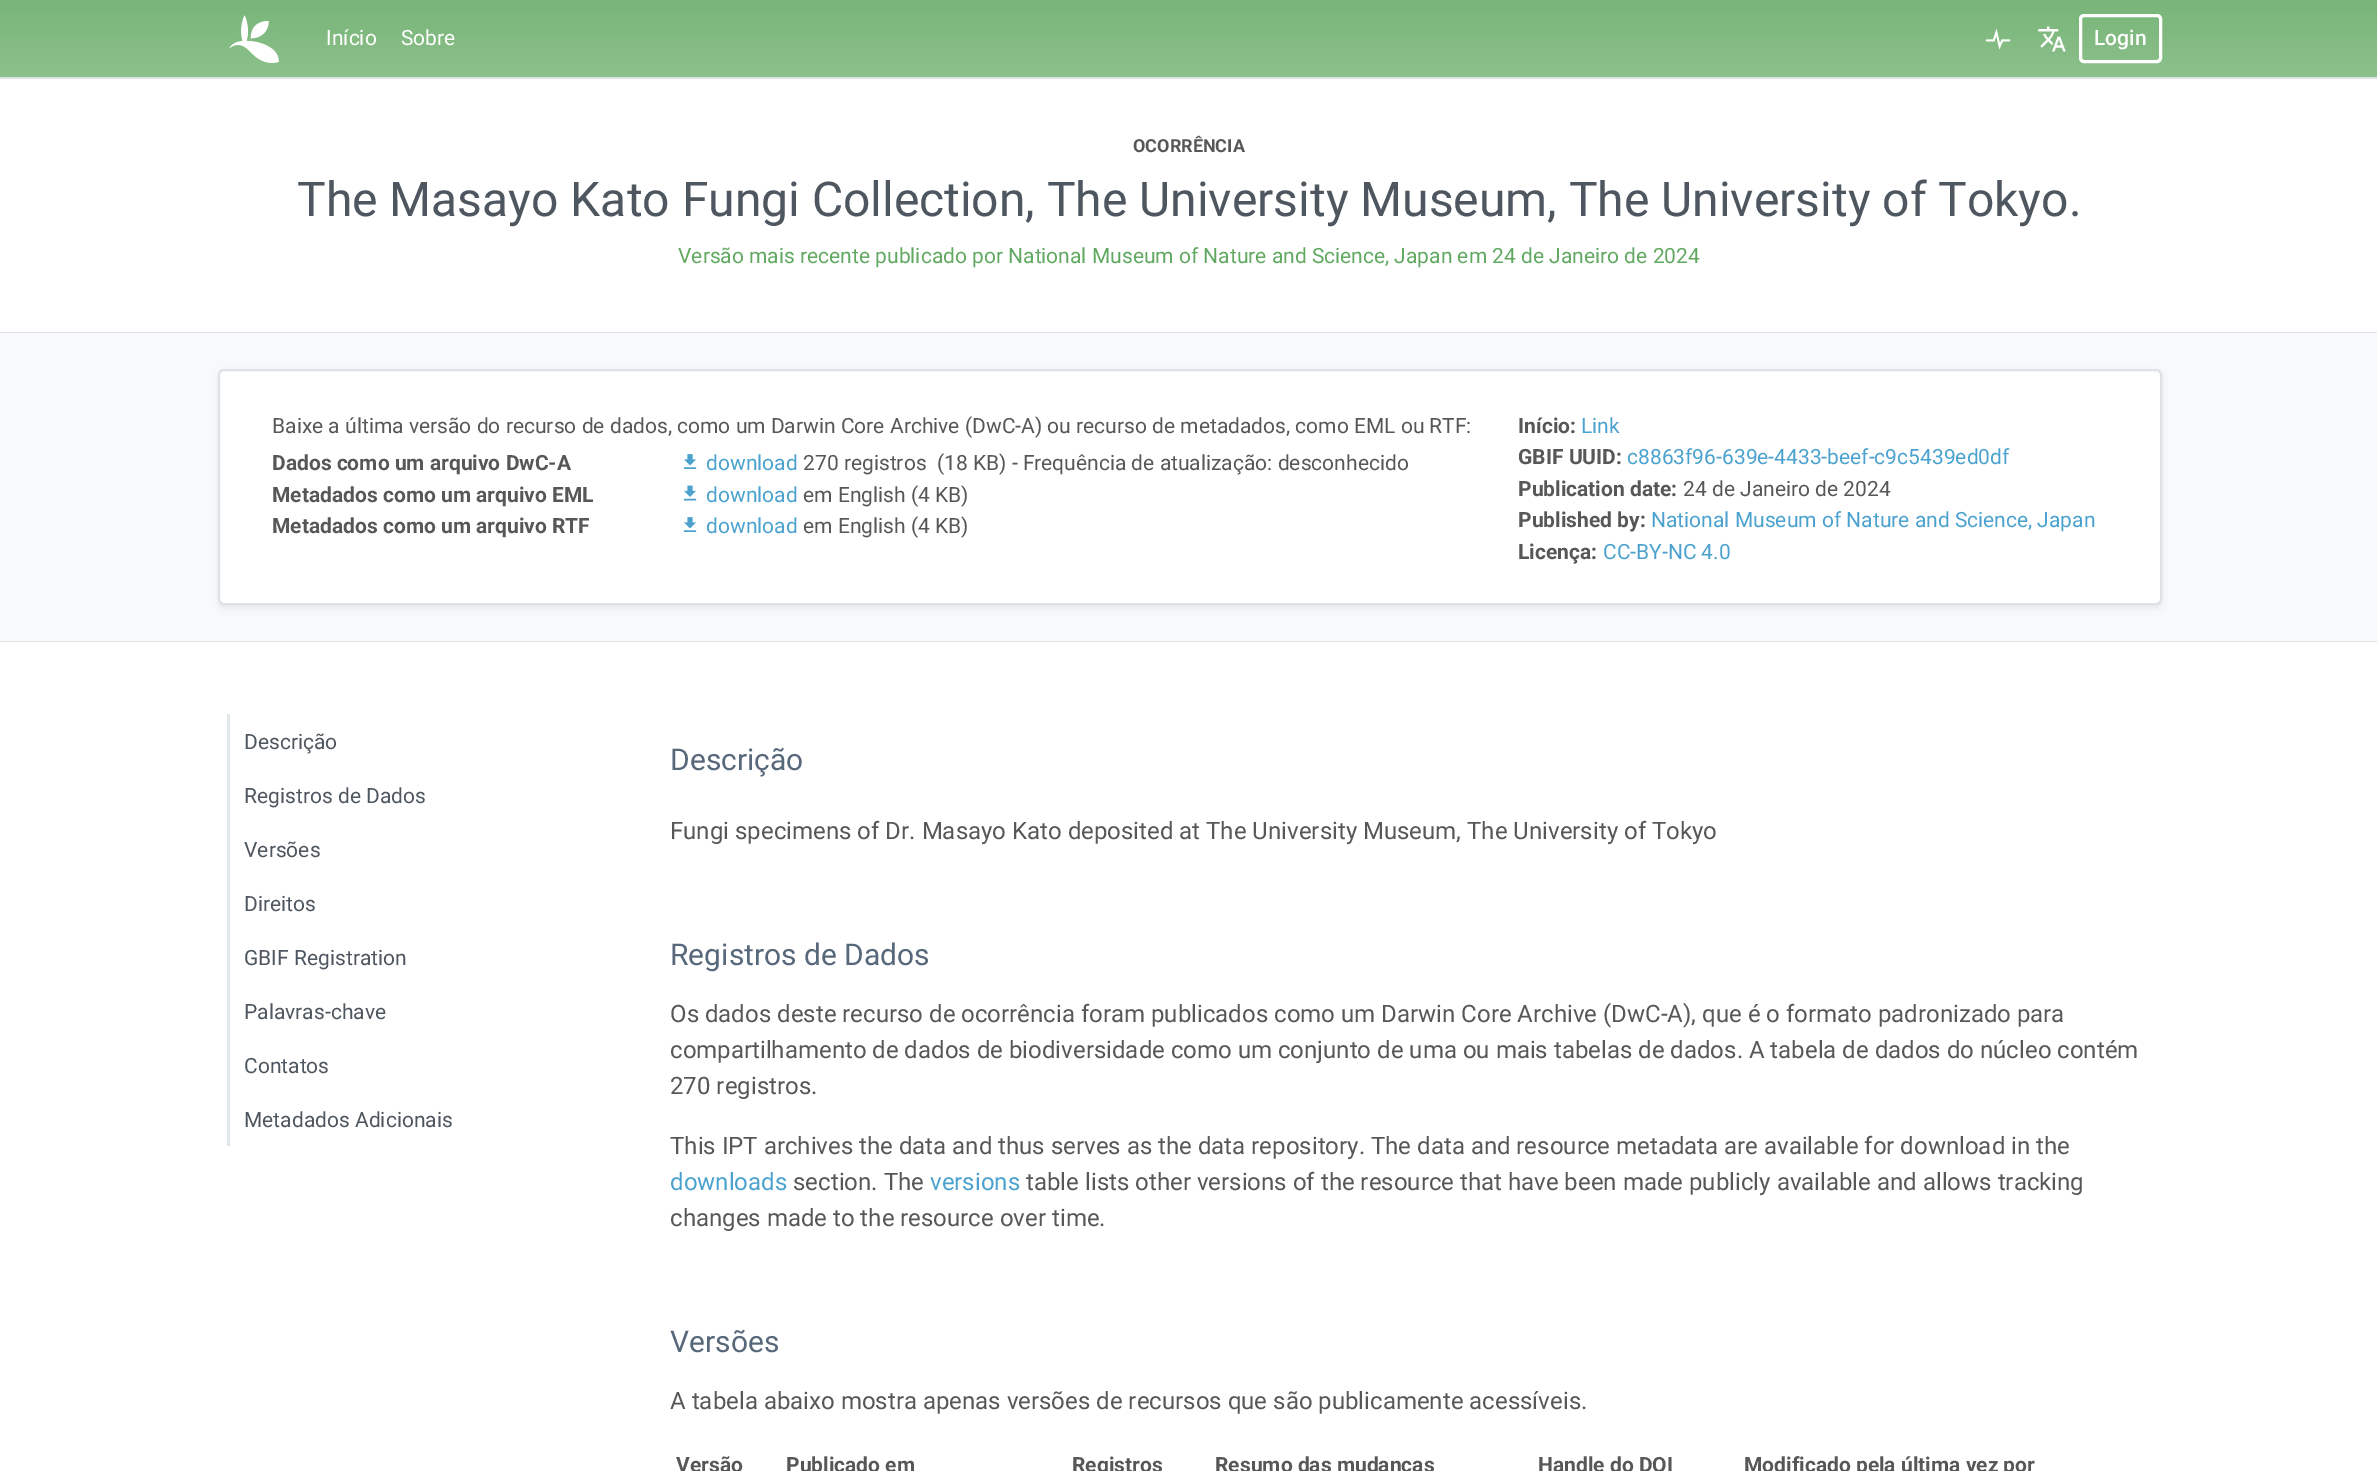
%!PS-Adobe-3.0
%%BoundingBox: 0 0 2377 1471
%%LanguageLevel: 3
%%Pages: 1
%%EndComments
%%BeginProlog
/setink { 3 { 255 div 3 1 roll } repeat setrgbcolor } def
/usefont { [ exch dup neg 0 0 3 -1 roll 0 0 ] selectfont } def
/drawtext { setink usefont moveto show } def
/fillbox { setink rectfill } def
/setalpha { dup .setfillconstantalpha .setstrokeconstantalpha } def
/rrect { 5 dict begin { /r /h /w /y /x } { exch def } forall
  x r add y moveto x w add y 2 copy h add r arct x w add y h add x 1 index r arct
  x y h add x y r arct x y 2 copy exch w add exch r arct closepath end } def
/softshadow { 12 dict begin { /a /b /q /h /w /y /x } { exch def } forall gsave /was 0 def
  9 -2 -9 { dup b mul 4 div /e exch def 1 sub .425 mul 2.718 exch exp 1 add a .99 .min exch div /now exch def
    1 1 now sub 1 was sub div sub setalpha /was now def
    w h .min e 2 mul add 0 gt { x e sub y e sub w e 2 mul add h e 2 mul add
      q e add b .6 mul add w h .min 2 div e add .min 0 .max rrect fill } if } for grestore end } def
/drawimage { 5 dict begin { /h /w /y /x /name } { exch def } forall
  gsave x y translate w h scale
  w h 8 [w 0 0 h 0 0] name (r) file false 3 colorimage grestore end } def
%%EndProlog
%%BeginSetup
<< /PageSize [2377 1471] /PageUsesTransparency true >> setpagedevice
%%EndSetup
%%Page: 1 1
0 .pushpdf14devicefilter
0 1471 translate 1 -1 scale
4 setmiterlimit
0 0 2377 1471 255 255 255 fillbox
gsave 0 0 moveto 2377 0 lineto 2377 77 lineto 0 77 lineto closepath clip newpath
<< /ShadingType 2 /ColorSpace /DeviceRGB /Coords [1189 0 1189 77] /Extend [true true] /Function << /FunctionType 2 /Domain [0 1] /C0 [0.471 0.71 0.471] /C1 [0.549 0.753 0.549] /N 1 >> >> shfill grestore
0 77 2377 2 222 226 230 fillbox
(assets/img1.rgb) 229 15 50 48 drawimage
(Início) 326 45 /Roboto-Regular 21 255 255 255 drawtext
(Sobre) 401 45 /Roboto-Regular 21 255 255 255 drawtext
(assets/img2.rgb) 1985 28 26 22 drawimage
(assets/img3.rgb) 2038 26 28 26 drawimage
3 setlinewidth
2080.5 15.5 80 46 3.5 rrect stroke
(Login) 2094 45 /Roboto-Medium 21 255 255 255 drawtext
0 332 2377 1 222 226 230 fillbox
(OCORRÊNCIA) 1133 152 /Roboto-Bold 18 87 87 87 drawtext
(The Masayo Kato Fungi Collection, The University Museum, The University of Tokyo.) 297 216 /Roboto-Regular 48 78 86 95 drawtext
(Versão mais recente publicado por National Museum of Nature and Science, Japan em 24 de Janeiro de 2024) 678 263 /Roboto-Regular 21 97 168 97 drawtext
0 333 2377 308 248 249 250 fillbox
0 641 2377 1 222 226 230 fillbox
0 0 0 setink
218 372 1944 236 6 3 0.07 softshadow
255 255 255 setink
219 370 1942 234 5 rrect gsave fill grestore
222 226 230 setink
2 setlinewidth
stroke
(Baixe a última versão do recurso de dados, como um Darwin Core Archive \(DwC-A\) ou recurso de metadados, como EML ou RTF:) 272 433 /Roboto-Regular 21 87 87 87 drawtext
(Dados como um arquivo DwC-A) 272 470 /Roboto-Bold 21 87 87 87 drawtext
(assets/img4.rgb) 683 454 14 15 drawimage
(download) 706 470 /Roboto-Regular 21 75 162 206 drawtext
(270 registros  \(18 KB\) - Frequência de atualização: desconhecido) 803 470 /Roboto-Regular 21 87 87 87 drawtext
(Metadados como um arquivo EML) 272 502 /Roboto-Bold 21 87 87 87 drawtext
(assets/img5.rgb) 683 485 14 16 drawimage
(download) 706 502 /Roboto-Regular 21 75 162 206 drawtext
(em English \(4 KB\)) 803 502 /Roboto-Regular 21 87 87 87 drawtext
(Metadados como um arquivo RTF) 272 533 /Roboto-Bold 21 87 87 87 drawtext
(assets/img4.rgb) 683 517 14 15 drawimage
(download) 706 533 /Roboto-Regular 21 75 162 206 drawtext
(em English \(4 KB\)) 803 533 /Roboto-Regular 21 87 87 87 drawtext
(Início:) 1518 433 /Roboto-Bold 21 87 87 87 drawtext
(Link) 1581 433 /Roboto-Regular 21 75 162 206 drawtext
(GBIF UUID:) 1518 464 /Roboto-Bold 21 87 87 87 drawtext
(c8863f96-639e-4433-beef-c9c5439ed0df) 1627 464 /Roboto-Regular 21 75 162 206 drawtext
(Publication date:) 1518 496 /Roboto-Bold 21 87 87 87 drawtext
(24 de Janeiro de 2024) 1683 496 /Roboto-Regular 21 87 87 87 drawtext
(Published by:) 1518 527 /Roboto-Bold 21 87 87 87 drawtext
(National Museum of Nature and Science, Japan) 1651 527 /Roboto-Regular 21 75 162 206 drawtext
(Licença:) 1518 559 /Roboto-Bold 21 87 87 87 drawtext
(CC-BY-NC 4.0) 1603 559 /Roboto-Regular 21 75 162 206 drawtext
227 714 3 432 226 231 234 fillbox
(Descrição) 244 749 /Roboto-Regular 21 78 86 95 drawtext
(Registros de Dados) 244 803 /Roboto-Regular 21 78 86 95 drawtext
(Versões) 244 857 /Roboto-Regular 21 78 86 95 drawtext
(Direitos) 244 911 /Roboto-Regular 21 78 86 95 drawtext
(GBIF Registration) 244 965 /Roboto-Regular 21 78 86 95 drawtext
(Palavras-chave) 244 1019 /Roboto-Regular 21 78 86 95 drawtext
(Contatos) 244 1073 /Roboto-Regular 21 78 86 95 drawtext
(Metadados Adicionais) 244 1127 /Roboto-Regular 21 78 86 95 drawtext
(Descrição) 670 770 /Roboto-Regular 30 88 104 123 drawtext
(Fungi specimens of Dr. Masayo Kato deposited at The University Museum, The University of Tokyo) 670 839 /Roboto-Regular 24 87 87 87 drawtext
(Registros de Dados) 670 965 /Roboto-Regular 30 88 104 123 drawtext
(Os dados deste recurso de ocorrência foram publicados como um Darwin Core Archive \(DwC-A\), que é o formato padronizado para) 670 1022 /Roboto-Regular 24 87 87 87 drawtext
(compartilhamento de dados de biodiversidade como um conjunto de uma ou mais tabelas de dados. A tabela de dados do núcleo contém) 670 1058 /Roboto-Regular 24 87 87 87 drawtext
(270 registros.) 670 1094 /Roboto-Regular 24 87 87 87 drawtext
(This IPT archives the data and thus serves as the data repository. The data and resource metadata are available for download in the) 670 1154 /Roboto-Regular 24 87 87 87 drawtext
(downloads) 670 1190 /Roboto-Regular 24 75 162 206 drawtext
(section. The) 793 1190 /Roboto-Regular 24 87 87 87 drawtext
(versions) 930 1190 /Roboto-Regular 24 75 162 206 drawtext
(table lists other versions of the resource that have been made publicly available and allows tracking) 1026 1190 /Roboto-Regular 24 87 87 87 drawtext
(changes made to the resource over time.) 670 1226 /Roboto-Regular 24 87 87 87 drawtext
(Versões) 670 1352 /Roboto-Regular 30 88 104 123 drawtext
(A tabela abaixo mostra apenas versões de recursos que são publicamente acessíveis.) 670 1409 /Roboto-Regular 24 87 87 87 drawtext
(Versão) 676 1472 /Roboto-Bold 21 87 87 87 drawtext
(Publicado em) 786 1472 /Roboto-Bold 21 87 87 87 drawtext
(Registros) 1072 1472 /Roboto-Bold 21 87 87 87 drawtext
(Resumo das mudanças) 1215 1472 /Roboto-Bold 21 87 87 87 drawtext
(Handle do DOI) 1538 1472 /Roboto-Bold 21 87 87 87 drawtext
(Modificado pela última vez por) 1744 1472 /Roboto-Bold 21 87 87 87 drawtext
.poppdf14devicefilter showpage
%%EOF
